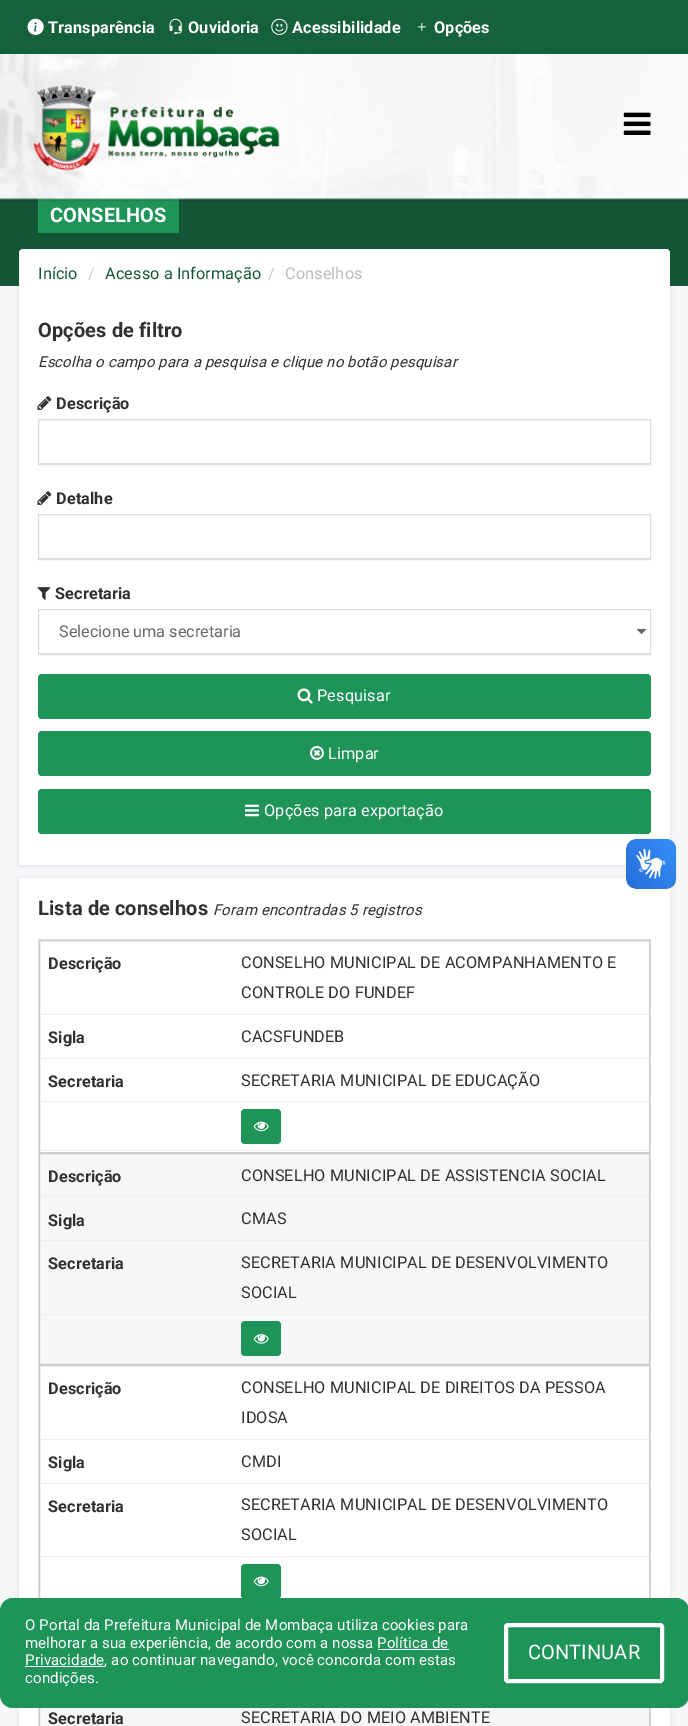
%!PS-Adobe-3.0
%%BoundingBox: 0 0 688 1726
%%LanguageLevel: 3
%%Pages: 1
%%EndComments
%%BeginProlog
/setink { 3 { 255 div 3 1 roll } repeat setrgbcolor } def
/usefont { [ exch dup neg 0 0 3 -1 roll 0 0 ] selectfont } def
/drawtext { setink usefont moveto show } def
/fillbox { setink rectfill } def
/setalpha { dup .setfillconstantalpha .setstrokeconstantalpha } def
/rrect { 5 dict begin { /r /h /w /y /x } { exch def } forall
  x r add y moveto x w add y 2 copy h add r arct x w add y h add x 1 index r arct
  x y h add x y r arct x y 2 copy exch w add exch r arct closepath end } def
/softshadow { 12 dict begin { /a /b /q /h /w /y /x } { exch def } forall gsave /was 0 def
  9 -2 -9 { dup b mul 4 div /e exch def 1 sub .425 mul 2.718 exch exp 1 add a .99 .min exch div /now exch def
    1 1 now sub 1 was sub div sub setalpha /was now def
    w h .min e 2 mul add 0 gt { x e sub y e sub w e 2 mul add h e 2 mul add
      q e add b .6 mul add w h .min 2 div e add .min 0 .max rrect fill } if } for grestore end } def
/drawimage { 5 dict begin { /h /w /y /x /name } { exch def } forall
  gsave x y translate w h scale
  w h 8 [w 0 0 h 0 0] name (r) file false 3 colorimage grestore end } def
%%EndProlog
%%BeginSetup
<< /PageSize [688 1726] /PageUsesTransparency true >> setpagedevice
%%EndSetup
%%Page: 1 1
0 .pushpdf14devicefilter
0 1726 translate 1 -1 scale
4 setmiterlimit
0 0 688 1726 246 247 248 fillbox
3 0 71 setink
19 250 651 616 0 2 0.09 softshadow
0 198 688 88 18 86 53 fillbox
38 198 141 35 31 148 89 fillbox
0 0 0 setink
0 1 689 199 0 1 0.3 softshadow
(assets/img1.rgb) 0 54 688 146 drawimage
0 0 688 54 21 97 59 fillbox
(assets/img2.rgb) 27 18 17 17 drawimage
/Roboto-Bold 16.25 usefont
255 255 255 setink
48 33 moveto 0.12 0 (Transparência) ashow
(assets/img3.rgb) 169 18 13 16 drawimage
188 33 moveto 0.12 0 (Ouvidoria) ashow
(assets/img4.rgb) 271 18 17 17 drawimage
292 33 moveto 0.12 0 (Acessibilidade) ashow
(assets/img5.rgb) 417 22 9 9 drawimage
434 33 moveto 0.12 0 (Opções) ashow
(assets/img6.rgb) 33 85 247 86 drawimage
(assets/img7.rgb) 623 112 28 23 drawimage
/Roboto-Bold 20 usefont
50 222 moveto 0.12 0 (CONSELHOS) ashow
19 295 651 570 255 255 255 fillbox
19 249 651 50 4 rrect fill
/Roboto-Regular 16.25 usefont
19 87 53 setink
38 279 moveto 0.12 0 (Início) ashow
204 204 204 setink
88 279 moveto 0.12 0 (/) ashow
19 87 53 setink
105 279 moveto 0.12 0 (Acesso a Informação) ashow
204 204 204 setink
268 279 moveto 0.12 0 (/) ashow
187 187 187 setink
285 279 moveto 0.12 0 (Conselhos) ashow
/Roboto-Bold 20 usefont
48 48 48 setink
38 337 moveto 0.12 0 (Opções de filtro) ashow
/Roboto-Italic 15 usefont
38 367 moveto 0.12 0 (Escolha o campo para a pesquisa e clique no botão pesquisar) ashow
(assets/img8.rgb) 37 396 15 14 drawimage
/Roboto-Bold 16.25 usefont
56 409 moveto 0.12 0 (Descrição) ashow
39 463 611 1 221 221 221 fillbox
38.5 419.5 612 45 rectstroke
(assets/img8.rgb) 37 491 15 14 drawimage
48 48 48 setink
56 504 moveto 0.12 0 (Detalhe) ashow
39 558 611 1 221 221 221 fillbox
38.5 514.5 612 45 rectstroke
(assets/img9.rgb) 37 587 14 13 drawimage
48 48 48 setink
55 599 moveto 0.12 0 (Secretaria) ashow
(assets/img10.rgb) 637 628 10 7 drawimage
39 653 611 1 221 221 221 fillbox
38.5 609.5 612 45 rectstroke
(Selecione uma secretaria) 59 637 /Roboto-Regular 16.25 102 102 102 drawtext
31 148 89 setink
38 674 613 45 4 rrect fill
(assets/img11.rgb) 297 688 16 16 drawimage
255 255 255 setink
317 701 moveto 0.12 0 (Pesquisar) ashow
31 148 89 setink
38 731 613 45 4 rrect fill
(assets/img12.rgb) 310 746 14 14 drawimage
255 255 255 setink
328 759 moveto 0.12 0 (Limpar) ashow
31 148 89 setink
38 789 613 45 4 rrect fill
(assets/img13.rgb) 245 804 14 13 drawimage
255 255 255 setink
264 816 moveto 0.12 0 (Opções para exportação) ashow
3 0 71 setink
19 879 651 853 0 2 0.09 softshadow
19 878 651 848 255 255 255 fillbox
(assets/img14.rgb) 626 838 51 51 drawimage
(assets/img15.rgb) 626 839 50 50 drawimage
/Roboto-Bold 20 usefont
48 48 48 setink
38 915 moveto 0.12 0 (Lista de conselhos) ashow
/Roboto-Italic 15 usefont
213 915 moveto 0.12 0 (Foram encontradas 5 registros) ashow
38 939 613 1 221 221 221 fillbox
650 939 1 787 221 221 221 fillbox
38 939 1 787 221 221 221 fillbox
204 204 204 setink
39.5 940.5 610 212 rectstroke
40 1014 609 1 238 238 238 fillbox
/Roboto-Bold 16.25 usefont
48 48 48 setink
48 969 moveto 0.12 0 (Descrição) ashow
/Roboto-Regular 16.25 usefont
241 968 moveto 0.12 0 (CONSELHO MUNICIPAL DE ACOMPANHAMENTO E) ashow
241 998 moveto 0.12 0 (CONTROLE DO FUNDEF) ashow
40 1058 609 1 238 238 238 fillbox
/Roboto-Bold 16.25 usefont
48 48 48 setink
48 1043 moveto 0.12 0 (Sigla) ashow
/Roboto-Regular 16.25 usefont
241 1042 moveto 0.12 0 (CACSFUNDEB) ashow
40 1101 609 1 238 238 238 fillbox
/Roboto-Bold 16.25 usefont
48 48 48 setink
48 1087 moveto 0.12 0 (Secretaria) ashow
/Roboto-Regular 16.25 usefont
241 1086 moveto 0.12 0 (SECRETARIA MUNICIPAL DE EDUCAÇÃO) ashow
40 1150 609 1 238 238 238 fillbox
31 148 89 setink
241 1109 40 35 4 rrect fill
(assets/img16.rgb) 253 1121 16 11 drawimage
40 1154 609 209 246 247 248 fillbox
204 204 204 setink
39.5 1153.5 610 211 rectstroke
40 1196 609 1 238 238 238 fillbox
/Roboto-Bold 16.25 usefont
48 48 48 setink
48 1182 moveto 0.12 0 (Descrição) ashow
/Roboto-Regular 16.25 usefont
241 1181 moveto 0.12 0 (CONSELHO MUNICIPAL DE ASSISTENCIA SOCIAL) ashow
40 1240 609 1 238 238 238 fillbox
/Roboto-Bold 16.25 usefont
48 48 48 setink
48 1226 moveto 0.12 0 (Sigla) ashow
/Roboto-Regular 16.25 usefont
241 1224 moveto 0.12 0 (CMAS) ashow
40 1314 609 1 238 238 238 fillbox
/Roboto-Bold 16.25 usefont
48 48 48 setink
48 1269 moveto 0.12 0 (Secretaria) ashow
/Roboto-Regular 16.25 usefont
241 1268 moveto 0.12 0 (SECRETARIA MUNICIPAL DE DESENVOLVIMENTO) ashow
241 1298 moveto 0.12 0 (SOCIAL) ashow
40 1363 609 1 238 238 238 fillbox
31 148 89 setink
241 1321 40 35 4 rrect fill
(assets/img17.rgb) 253 1334 16 10 drawimage
204 204 204 setink
39.5 1365.5 610 242 rectstroke
40 1439 609 1 238 238 238 fillbox
/Roboto-Bold 16.25 usefont
48 48 48 setink
48 1394 moveto 0.12 0 (Descrição) ashow
/Roboto-Regular 16.25 usefont
241 1393 moveto 0.12 0 (CONSELHO MUNICIPAL DE DIREITOS DA PESSOA) ashow
241 1423 moveto 0.12 0 (IDOSA) ashow
40 1483 609 1 238 238 238 fillbox
/Roboto-Bold 16.25 usefont
48 48 48 setink
48 1468 moveto 0.12 0 (Sigla) ashow
/Roboto-Regular 16.25 usefont
241 1467 moveto 0.12 0 (CMDI) ashow
40 1556 609 1 238 238 238 fillbox
/Roboto-Bold 16.25 usefont
48 48 48 setink
48 1512 moveto 0.12 0 (Secretaria) ashow
/Roboto-Regular 16.25 usefont
241 1510 moveto 0.12 0 (SECRETARIA MUNICIPAL DE DESENVOLVIMENTO) ashow
241 1540 moveto 0.12 0 (SOCIAL) ashow
31 148 89 setink
241 1564 40 35 4 rrect fill
(assets/img16.rgb) 253 1576 16 11 drawimage
40 1708 609 18 246 247 248 fillbox
204 204 204 setink
39.5 1608.5 610 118 rectstroke
/Roboto-Bold 16.25 usefont
48 48 48 setink
48 1724 moveto 0.12 0 (Secretaria) ashow
/Roboto-Regular 16.25 usefont
241 1723 moveto 0.12 0 (SECRETARIA DO MEIO AMBIENTE) ashow
31 148 89 setink
0 1598 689 110 13 rrect fill
/Roboto-Regular 15 usefont
255 255 255 setink
25 1630 moveto 0.12 0 (O Portal da Prefeitura Municipal de Mombaça utiliza cookies para) ashow
25 1648 moveto 0.12 0 (melhorar a sua experiência, de acordo com a nossa Política de) ashow
25 1666 80 1 255 255 255 fillbox
25 1665 moveto 0.12 0 (Privacidade, ao continuar navegando, você concorda com estas) ashow
378 1649 71 1 255 255 255 fillbox
25 1683 moveto 0.12 0 (condições.) ashow
4 setlinewidth
506 1625 156 56 2 rrect stroke
/Roboto-Regular 20 usefont
528 1659 moveto 0.12 0 (CONTINUAR) ashow
.poppdf14devicefilter showpage
%%EOF
